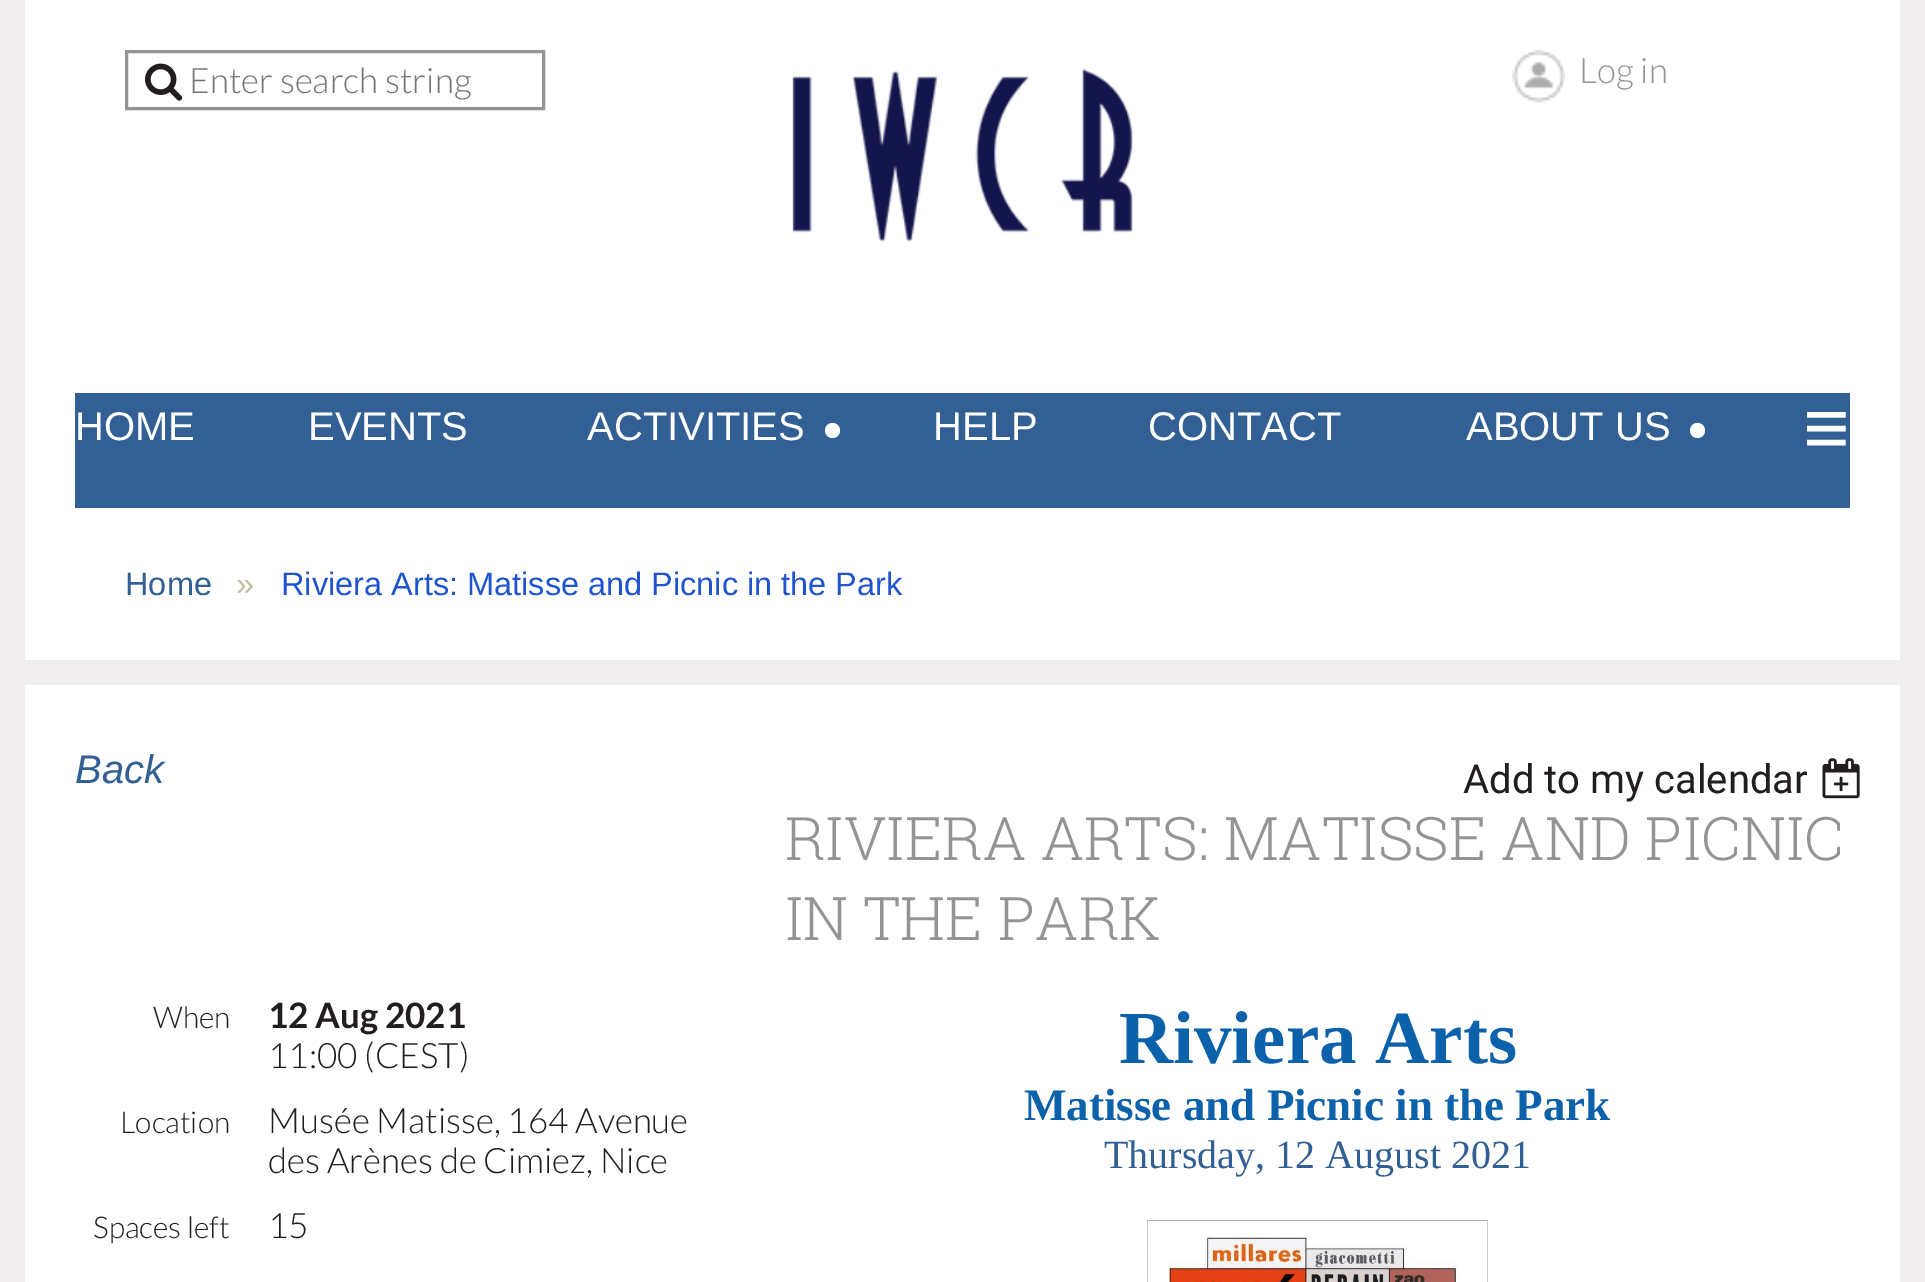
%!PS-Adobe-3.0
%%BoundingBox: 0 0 1925 1282
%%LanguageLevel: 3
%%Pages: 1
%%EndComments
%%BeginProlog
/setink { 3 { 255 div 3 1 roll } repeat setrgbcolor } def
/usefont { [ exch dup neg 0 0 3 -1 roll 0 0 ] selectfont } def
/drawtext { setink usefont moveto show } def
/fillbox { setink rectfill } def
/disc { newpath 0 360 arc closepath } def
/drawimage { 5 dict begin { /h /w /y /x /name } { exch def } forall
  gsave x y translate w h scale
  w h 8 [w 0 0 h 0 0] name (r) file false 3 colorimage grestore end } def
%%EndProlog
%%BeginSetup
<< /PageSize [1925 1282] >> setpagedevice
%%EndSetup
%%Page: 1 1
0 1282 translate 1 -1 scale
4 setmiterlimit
0 0 1925 1282 240 238 238 fillbox
25 0 1875 660 255 255 255 fillbox
148 148 147 setink
3 setlinewidth
126.5 51.5 417 57 rectstroke
(assets/img1.rgb) 145 63 38 38 drawimage
(Enter search string) 189 93 /Lato-Light 35 117 117 117 drawtext
(assets/img2.rgb) 792 68 341 174 drawimage
(assets/img3.rgb) 1512 50 53 53 drawimage
(Log in) 1579 83 /Lato-Light 35 148 148 147 drawtext
75 393 1775 115 50 96 148 fillbox
(HOME) 75 440 /LiberationSans-Regular 40 255 255 255 drawtext
(EVENTS) 308 440 /LiberationSans-Regular 40 255 255 255 drawtext
(ACTIVITIES) 587 440 /LiberationSans-Regular 40 255 255 255 drawtext
832.5 430.5 7.5 disc fill
(HELP) 933 440 /LiberationSans-Regular 40 255 255 255 drawtext
(CONTACT) 1148 440 /LiberationSans-Regular 40 255 255 255 drawtext
(ABOUT US) 1466 440 /LiberationSans-Regular 40 255 255 255 drawtext
1697.5 430.5 7.5 disc fill
(≡) 1803 455 /LiberationSans-Regular 80 255 255 255 drawtext
(Home) 125 595 /LiberationSans-Regular 32.5 50 96 148 drawtext
(») 236 595 /LiberationSans-Regular 32.5 191 191 160 drawtext
(Riviera Arts: Matisse and Picnic in the Park) 281 595 /LiberationSans-Regular 32.5 31 84 208 drawtext
25 685 1875 597 255 255 255 fillbox
(Back) 75 783 /LiberationSans-Italic 40 50 96 148 drawtext
(Add to my calendar) 1463 793 /Roboto-Regular 40 34 30 31 drawtext
(assets/img4.rgb) 1822 758 38 41 drawimage
(RIVIERA ARTS: MATISSE AND PICNIC) 785 860 /RobotoSlab-Light 60 148 148 147 drawtext
(IN THE PARK) 785 940 /RobotoSlab-Light 60 148 148 147 drawtext
(When) 153 1028 /Lato-Light 30 34 30 31 drawtext
(12 Aug 2021) 268 1028 /Lato-Bold 35 34 30 31 drawtext
(11:00 \(CEST\)) 268 1068 /Lato-Light 35 34 30 31 drawtext
(Location) 120 1133 /Lato-Light 30 34 30 31 drawtext
(Musée Matisse, 164 Avenue) 268 1133 /Lato-Light 35 34 30 31 drawtext
(des Arènes de Cimiez, Nice) 268 1173 /Lato-Light 35 34 30 31 drawtext
(Spaces left) 93 1238 /Lato-Light 30 34 30 31 drawtext
(15) 268 1238 /Lato-Light 35 34 30 31 drawtext
(Riviera Arts) 1119 1063 /LiberationSerif-Bold 75 12 97 171 drawtext
(Matisse and Picnic in the Park) 1024 1120 /LiberationSerif-Bold 45 12 97 171 drawtext
(Thursday, 12 August 2021) 1104 1168 /LiberationSerif-Regular 40 50 96 148 drawtext
(assets/img5.rgb) 1147 1220 341 62 drawimage
showpage
%%EOF
